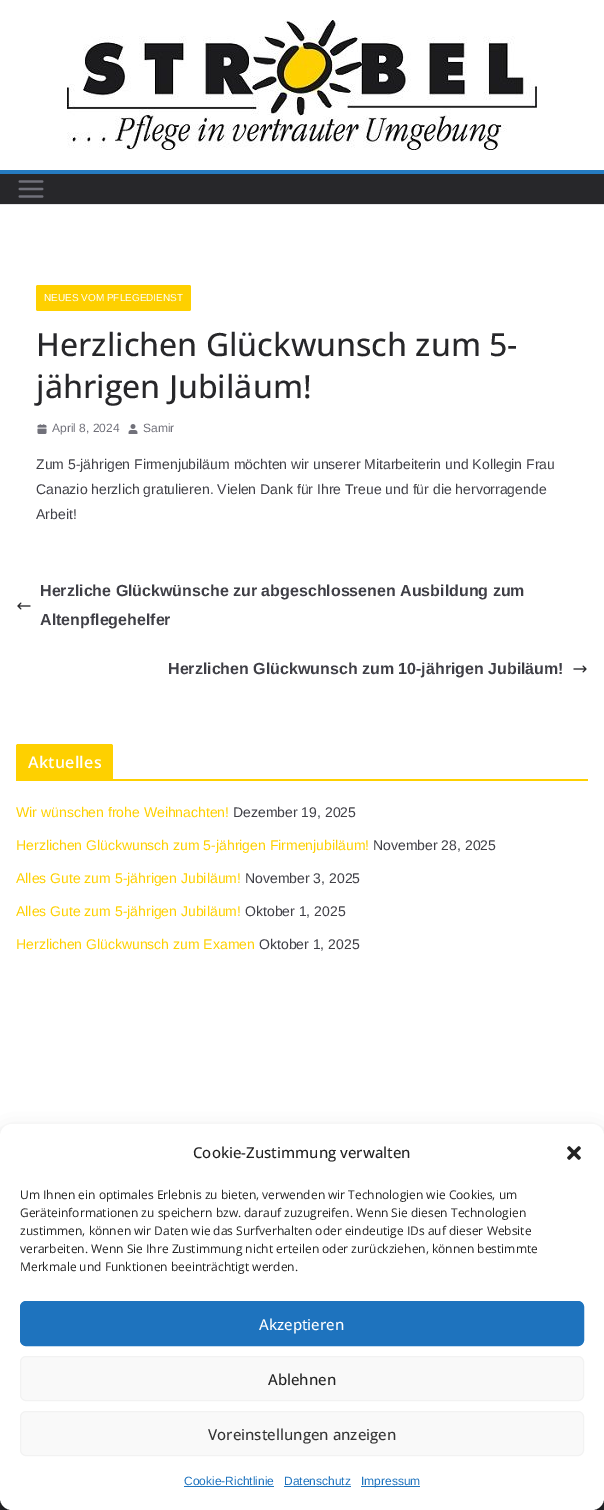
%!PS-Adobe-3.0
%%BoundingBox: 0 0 604 1510
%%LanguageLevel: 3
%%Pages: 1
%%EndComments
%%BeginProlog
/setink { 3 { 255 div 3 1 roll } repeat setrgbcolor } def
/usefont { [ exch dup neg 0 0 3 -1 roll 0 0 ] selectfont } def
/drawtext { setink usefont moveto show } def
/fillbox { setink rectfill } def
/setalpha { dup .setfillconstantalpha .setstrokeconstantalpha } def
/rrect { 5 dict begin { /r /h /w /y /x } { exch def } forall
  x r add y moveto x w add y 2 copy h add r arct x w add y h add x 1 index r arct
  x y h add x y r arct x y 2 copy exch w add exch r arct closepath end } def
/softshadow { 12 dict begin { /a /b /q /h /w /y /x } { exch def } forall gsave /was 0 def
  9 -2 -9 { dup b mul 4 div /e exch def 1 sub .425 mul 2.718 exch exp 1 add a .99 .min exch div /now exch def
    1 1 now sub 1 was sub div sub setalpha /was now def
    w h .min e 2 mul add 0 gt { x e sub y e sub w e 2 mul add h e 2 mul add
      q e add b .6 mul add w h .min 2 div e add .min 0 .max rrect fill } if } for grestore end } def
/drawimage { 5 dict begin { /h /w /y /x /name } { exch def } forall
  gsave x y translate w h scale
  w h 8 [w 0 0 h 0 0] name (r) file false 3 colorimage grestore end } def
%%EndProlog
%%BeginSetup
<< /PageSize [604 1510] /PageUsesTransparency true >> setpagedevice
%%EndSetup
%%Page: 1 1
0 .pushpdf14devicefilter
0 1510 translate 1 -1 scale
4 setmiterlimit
0 0 604 1510 255 255 255 fillbox
0 204 604 1 228 228 231 fillbox
(assets/img1.rgb) 67 20 470 130 drawimage
0 174 604 30 39 39 42 fillbox
0 170 604 4 37 123 193 fillbox
(assets/img2.rgb) 18 180 26 18 drawimage
254 208 0 setink
36 285 155 26 2 rrect fill
(NEUES VOM PFLEGEDIENST) 44 301 /LiberationSans-Regular 10 255 255 255 drawtext
(Herzlichen Glückwunsch zum 5-) 36 356 /OpenSans-Medium 32 39 39 42 drawtext
(jährigen Jubiläum!) 36 398 /OpenSans-Medium 32 39 39 42 drawtext
(assets/img3.rgb) 37 424 10 10 drawimage
(April 8, 2024) 52 432 /LiberationSans-Regular 12 113 113 122 drawtext
(assets/img4.rgb) 128 424 10 10 drawimage
(Samir) 143 432 /LiberationSans-Regular 12 113 113 122 drawtext
(Zum 5-jährigen Firmenjubiläum möchten wir unserer Mitarbeiterin und Kollegin Frau) 36 469 /LiberationSans-Regular 14 63 63 70 drawtext
(Canazio herzlich gratulieren. Vielen Dank für Ihre Treue und für die hervorragende) 36 494 /LiberationSans-Regular 14 63 63 70 drawtext
(Arbeit!) 36 519 /LiberationSans-Regular 14 63 63 70 drawtext
(Herzliche Glückwünsche zur abgeschlossenen Ausbildung zum) 40 596 /LiberationSans-Bold 16 63 63 70 drawtext
(assets/img5.rgb) 17 602 14 8 drawimage
(Altenpflegehelfer) 40 625 /LiberationSans-Bold 16 63 63 70 drawtext
(Herzlichen Glückwunsch zum 10-jährigen Jubiläum!) 168 674 /LiberationSans-Bold 16 63 63 70 drawtext
(assets/img6.rgb) 573 665 14 8 drawimage
16 779 572 2 254 208 0 fillbox
18 744 moveto 111 744 lineto 112 744 113 745 113 746 curveto 113 779 lineto 16 779 lineto 16 746 lineto 16 745 17 744 18 744 curveto closepath fill
/OpenSans-SemiBold 16 usefont
255 255 255 setink
28 768 moveto 0.25 0 (Aktuelles) ashow
(Wir wünschen frohe Weihnachten!) 16 817 /LiberationSans-Regular 14 254 208 0 drawtext
(Dezember 19, 2025) 233 817 /LiberationSans-Regular 14 63 63 70 drawtext
(Herzlichen Glückwunsch zum 5-jährigen Firmenjubiläum!) 16 850 /LiberationSans-Regular 14 254 208 0 drawtext
(November 28, 2025) 373 850 /LiberationSans-Regular 14 63 63 70 drawtext
(Alles Gute zum 5-jährigen Jubiläum!) 16 883 /LiberationSans-Regular 14 254 208 0 drawtext
(November 3, 2025) 245 883 /LiberationSans-Regular 14 63 63 70 drawtext
(Alles Gute zum 5-jährigen Jubiläum!) 16 916 /LiberationSans-Regular 14 254 208 0 drawtext
(Oktober 1, 2025) 245 916 /LiberationSans-Regular 14 63 63 70 drawtext
(Herzlichen Glückwunsch zum Examen) 16 949 /LiberationSans-Regular 14 254 208 0 drawtext
(Oktober 1, 2025) 259 949 /LiberationSans-Regular 14 63 63 70 drawtext
0 1498 604 12 39 39 42 fillbox
0 0 0 setink
0 1130 604 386 12 3 0.23 softshadow
0 1134 604 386 12 10 0.19 softshadow
128 128 128 setink
534 1436 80 60 2 2.5 1 softshadow
255 255 255 setink
0 1124 604 386 12 rrect fill
(Cookie-Zustimmung verwalten) 193 1158 /OpenSans-Medium 15 34 34 34 drawtext
(assets/img7.rgb) 567 1146 14 14 drawimage
(Um Ihnen ein optimales Erlebnis zu bieten, verwenden wir Technologien wie Cookies, um) 20 1199 /OpenSans-Regular 12 34 34 34 drawtext
(Geräteinformationen zu speichern bzw. darauf zuzugreifen. Wenn Sie diesen Technologien) 20 1217 /OpenSans-Regular 12 34 34 34 drawtext
(zustimmen, können wir Daten wie das Surfverhalten oder eindeutige IDs auf dieser Website) 20 1235 /OpenSans-Regular 12 34 34 34 drawtext
(verarbeiten. Wenn Sie Ihre Zustimmung nicht erteilen oder zurückziehen, können bestimmte) 20 1253 /OpenSans-Regular 12 34 34 34 drawtext
(Merkmale und Funktionen beeinträchtigt werden.) 20 1271 /OpenSans-Regular 12 34 34 34 drawtext
30 115 190 setink
20.5 1301.5 563 44 5.5 rrect gsave fill grestore
stroke
(Akzeptieren) 259 1330 /OpenSans-Medium 15 255 255 255 drawtext
249 249 249 setink
20.5 1356.5 563 44 5.5 rrect gsave fill grestore
242 242 242 setink
stroke
(Ablehnen) 268 1385 /OpenSans-Medium 15 34 34 34 drawtext
249 249 249 setink
20.5 1411.5 563 44 5.5 rrect gsave fill grestore
242 242 242 setink
stroke
(Voreinstellungen anzeigen) 208 1440 /OpenSans-Medium 15 51 51 51 drawtext
(Cookie-Richtlinie) 184 1485 /LiberationSans-Regular 12 30 115 190 drawtext
184 1486 90 1 30 115 190 fillbox
(Datenschutz) 284 1485 /LiberationSans-Regular 12 30 115 190 drawtext
284 1486 67 1 30 115 190 fillbox
361 1486 59 1 30 115 190 fillbox
(Impressum) 361 1485 /LiberationSans-Regular 12 30 115 190 drawtext
.poppdf14devicefilter showpage
%%EOF
